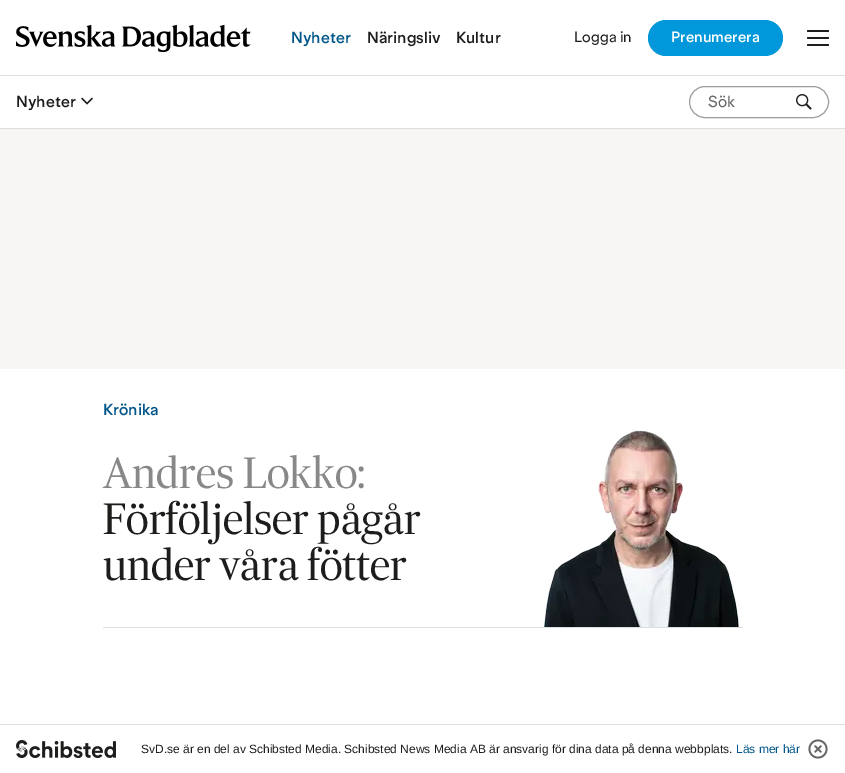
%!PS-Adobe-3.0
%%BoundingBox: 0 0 845 773
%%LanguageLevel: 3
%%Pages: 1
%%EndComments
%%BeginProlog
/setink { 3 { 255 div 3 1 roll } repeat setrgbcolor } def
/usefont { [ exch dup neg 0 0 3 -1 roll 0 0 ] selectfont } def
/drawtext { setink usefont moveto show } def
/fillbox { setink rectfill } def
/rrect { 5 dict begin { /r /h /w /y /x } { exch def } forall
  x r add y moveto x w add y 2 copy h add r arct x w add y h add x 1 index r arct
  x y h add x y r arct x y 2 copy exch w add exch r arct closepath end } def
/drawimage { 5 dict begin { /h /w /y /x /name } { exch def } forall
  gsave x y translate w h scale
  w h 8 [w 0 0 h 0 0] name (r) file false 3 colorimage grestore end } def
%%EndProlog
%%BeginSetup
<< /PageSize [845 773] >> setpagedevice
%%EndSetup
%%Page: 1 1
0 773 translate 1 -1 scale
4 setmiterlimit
0 0 845 773 255 255 255 fillbox
0 75 845 1 222 222 222 fillbox
(assets/img1.rgb) 16 24 235 29 drawimage
(Nyheter) 291 43 /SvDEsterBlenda-Medium 16 0 86 138 drawtext
(Näringsliv) 367 43 /SvDEsterBlenda-Medium 16 29 29 27 drawtext
(Kultur) 456 43 /SvDEsterBlenda-Medium 16 29 29 27 drawtext
(Logga in) 574 42 /SvDEsterBlenda-Regular 15 29 29 27 drawtext
0 152 218 setink
648 20 135 36 18 rrect fill
(Prenumerera) 671 42 /SvDEsterBlenda-Medium 15 255 255 255 drawtext
29 29 27 setink
807 37 22 2 1 rrect fill
807 30 22 2 1 rrect fill
807 44 22 2 1 rrect fill
0 128 845 1 222 222 222 fillbox
(Nyheter) 16 107 /SvDEsterBlenda-Medium 16 29 29 27 drawtext
(assets/img2.rgb) 81 97 12 8 drawimage
157 157 156 setink
689.5 86.5 139 31 15.5 rrect stroke
(Sök) 708 107 /SvDEsterBlenda-Regular 16 103 103 103 drawtext
(assets/img3.rgb) 796 94 16 16 drawimage
0 129 845 240 247 246 245 fillbox
(Krönika) 103 415 /SvDEsterBlenda-Medium 16 0 86 138 drawtext
103 627 640 1 222 222 222 fillbox
(Andres Lokko:) 103 488 /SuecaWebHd-Light 42 136 136 136 drawtext
(Förföljelser pågår) 103 534 /SuecaWebHd-Light 42 29 29 27 drawtext
(under våra fötter) 103 580 /SuecaWebHd-Light 42 29 29 27 drawtext
(assets/img4.rgb) 543 430 196 197 drawimage
0 724 845 1 222 222 222 fillbox
(assets/img5.rgb) 16 740 100 18 drawimage
(SvD.se är en del av Schibsted Media. Schibsted News Media AB är ansvarig för dina data på denna webbplats.) 141 753 /LiberationSans-Regular 12 29 29 27 drawtext
(Läs mer här) 736 753 /LiberationSans-Regular 12 0 86 138 drawtext
(assets/img6.rgb) 808 739 20 20 drawimage
showpage
%%EOF
